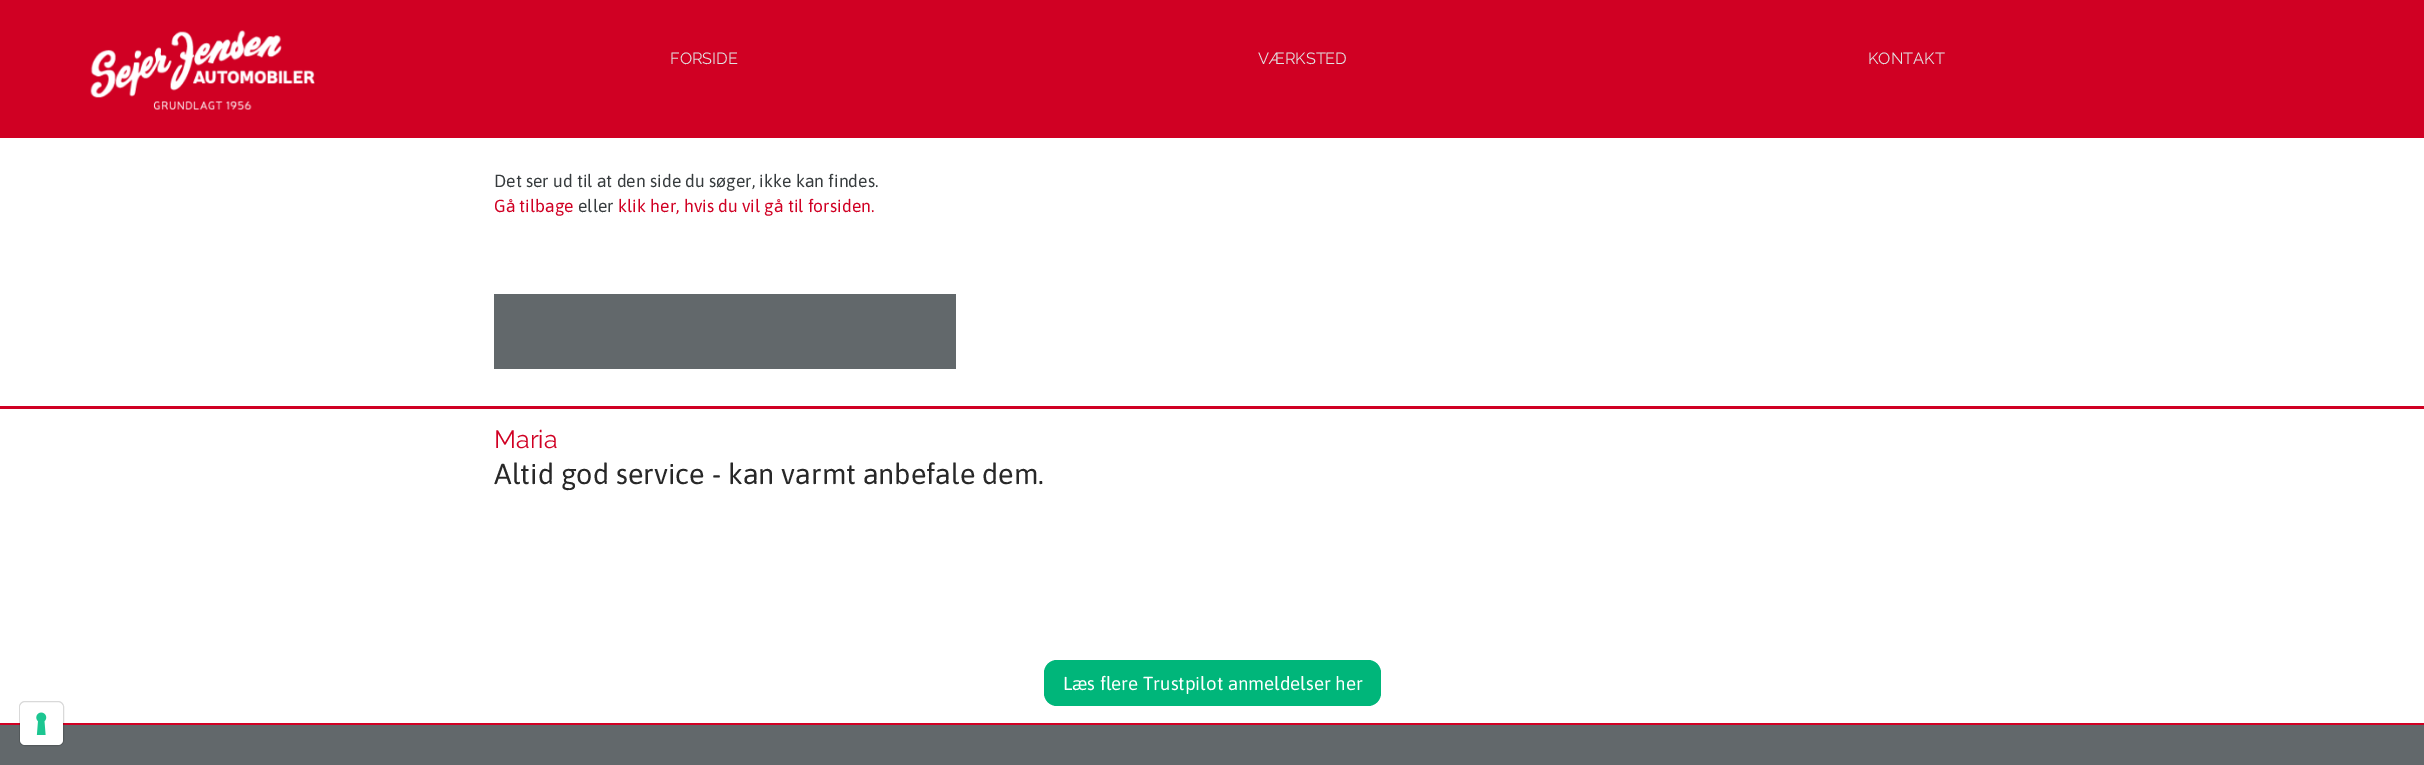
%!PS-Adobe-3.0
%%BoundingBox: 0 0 2424 765
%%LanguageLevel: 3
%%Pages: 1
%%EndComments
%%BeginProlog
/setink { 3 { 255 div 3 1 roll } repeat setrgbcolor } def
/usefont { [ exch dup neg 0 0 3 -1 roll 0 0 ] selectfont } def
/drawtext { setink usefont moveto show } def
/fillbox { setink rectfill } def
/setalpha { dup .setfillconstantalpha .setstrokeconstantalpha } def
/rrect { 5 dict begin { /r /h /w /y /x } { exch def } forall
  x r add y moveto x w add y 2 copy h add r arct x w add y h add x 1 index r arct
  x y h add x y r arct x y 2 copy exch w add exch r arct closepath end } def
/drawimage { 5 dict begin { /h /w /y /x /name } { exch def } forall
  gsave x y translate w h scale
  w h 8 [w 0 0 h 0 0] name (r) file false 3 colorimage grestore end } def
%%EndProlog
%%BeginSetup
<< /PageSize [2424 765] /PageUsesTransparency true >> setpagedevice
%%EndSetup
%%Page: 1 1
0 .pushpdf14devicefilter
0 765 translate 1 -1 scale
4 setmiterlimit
0 0 2424 765 255 255 255 fillbox
0 0 2424 138 208 0 35 fillbox
(assets/img1.rgb) 90 30 225 80 drawimage
(FORSIDE) 670 64 /Raleway-Thin 16.25 225 225 225 drawtext
(VÆRKSTED) 1258 64 /Raleway-Thin 16.25 225 225 225 drawtext
(KONTAKT) 1868 64 /Raleway-Thin 16.25 225 225 225 drawtext
(Det ser ud til at den side du søger, ikke kan findes.) 494 187 /Asap-Regular 17.5 55 60 62 drawtext
(Gå tilbage) 494 212 /Asap-Regular 17.5 208 0 35 drawtext
(eller) 578 212 /Asap-Regular 17.5 55 60 62 drawtext
(klik her, hvis du vil gå til forsiden.) 618 212 /Asap-Regular 17.5 208 0 35 drawtext
494 294 462 75 98 104 107 fillbox
0 406 2424 3 208 0 35 fillbox
0 723 2424 2 208 0 35 fillbox
(Maria) 494 448 /Raleway-Thin 25 208 0 35 drawtext
(Altid god service - kan varmt anbefale dem.) 494 484 /Asap-Regular 28.75 40 40 40 drawtext
0 182 122 setink
1044 660 337 46 13 rrect fill
(Læs flere Trustpilot anmeldelser her) 1063 690 /Asap-Regular 18.75 255 255 255 drawtext
0 725 2424 40 98 104 107 fillbox
0.15 setalpha
0 0 0 setink
19.5 701.5 44 44 5.5 rrect stroke
1 setalpha
255 255 255 setink
20 703 43 42 5 rrect fill
(assets/img2.rgb) 36 712 11 23 drawimage
.poppdf14devicefilter showpage
%%EOF
